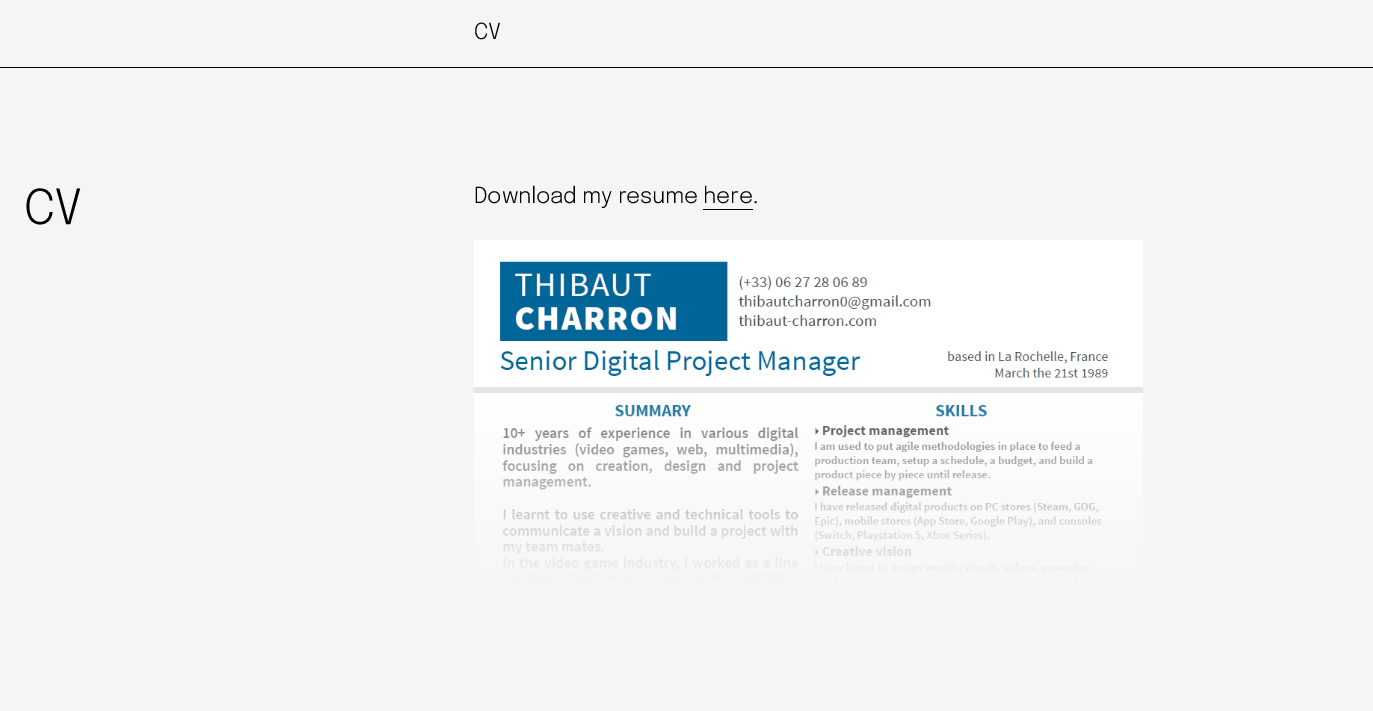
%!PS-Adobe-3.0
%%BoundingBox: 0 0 1373 711
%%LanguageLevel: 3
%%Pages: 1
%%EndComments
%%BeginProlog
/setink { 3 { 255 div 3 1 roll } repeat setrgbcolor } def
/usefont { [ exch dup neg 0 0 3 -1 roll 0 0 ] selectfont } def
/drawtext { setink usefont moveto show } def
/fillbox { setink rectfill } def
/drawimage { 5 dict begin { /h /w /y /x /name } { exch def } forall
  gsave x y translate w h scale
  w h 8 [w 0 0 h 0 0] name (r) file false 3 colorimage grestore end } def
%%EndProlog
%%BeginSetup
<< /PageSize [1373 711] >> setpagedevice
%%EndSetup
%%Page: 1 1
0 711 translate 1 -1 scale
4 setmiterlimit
0 0 1373 711 245 245 245 fillbox
0 67 1373 1 0 0 0 fillbox
(CV) 474 39 /Epilogue-Light 22.1 0 0 0 drawtext
/Epilogue-Light 48 usefont
24 224 moveto -1 0 (CV) ashow
/Epilogue-Light 22.1 usefont
474 203 moveto -0.25 0 (Download my resume here.) ashow
703 209 50 1 0 0 0 fillbox
(assets/img1.rgb) 474 240 669 339 drawimage
showpage
%%EOF
